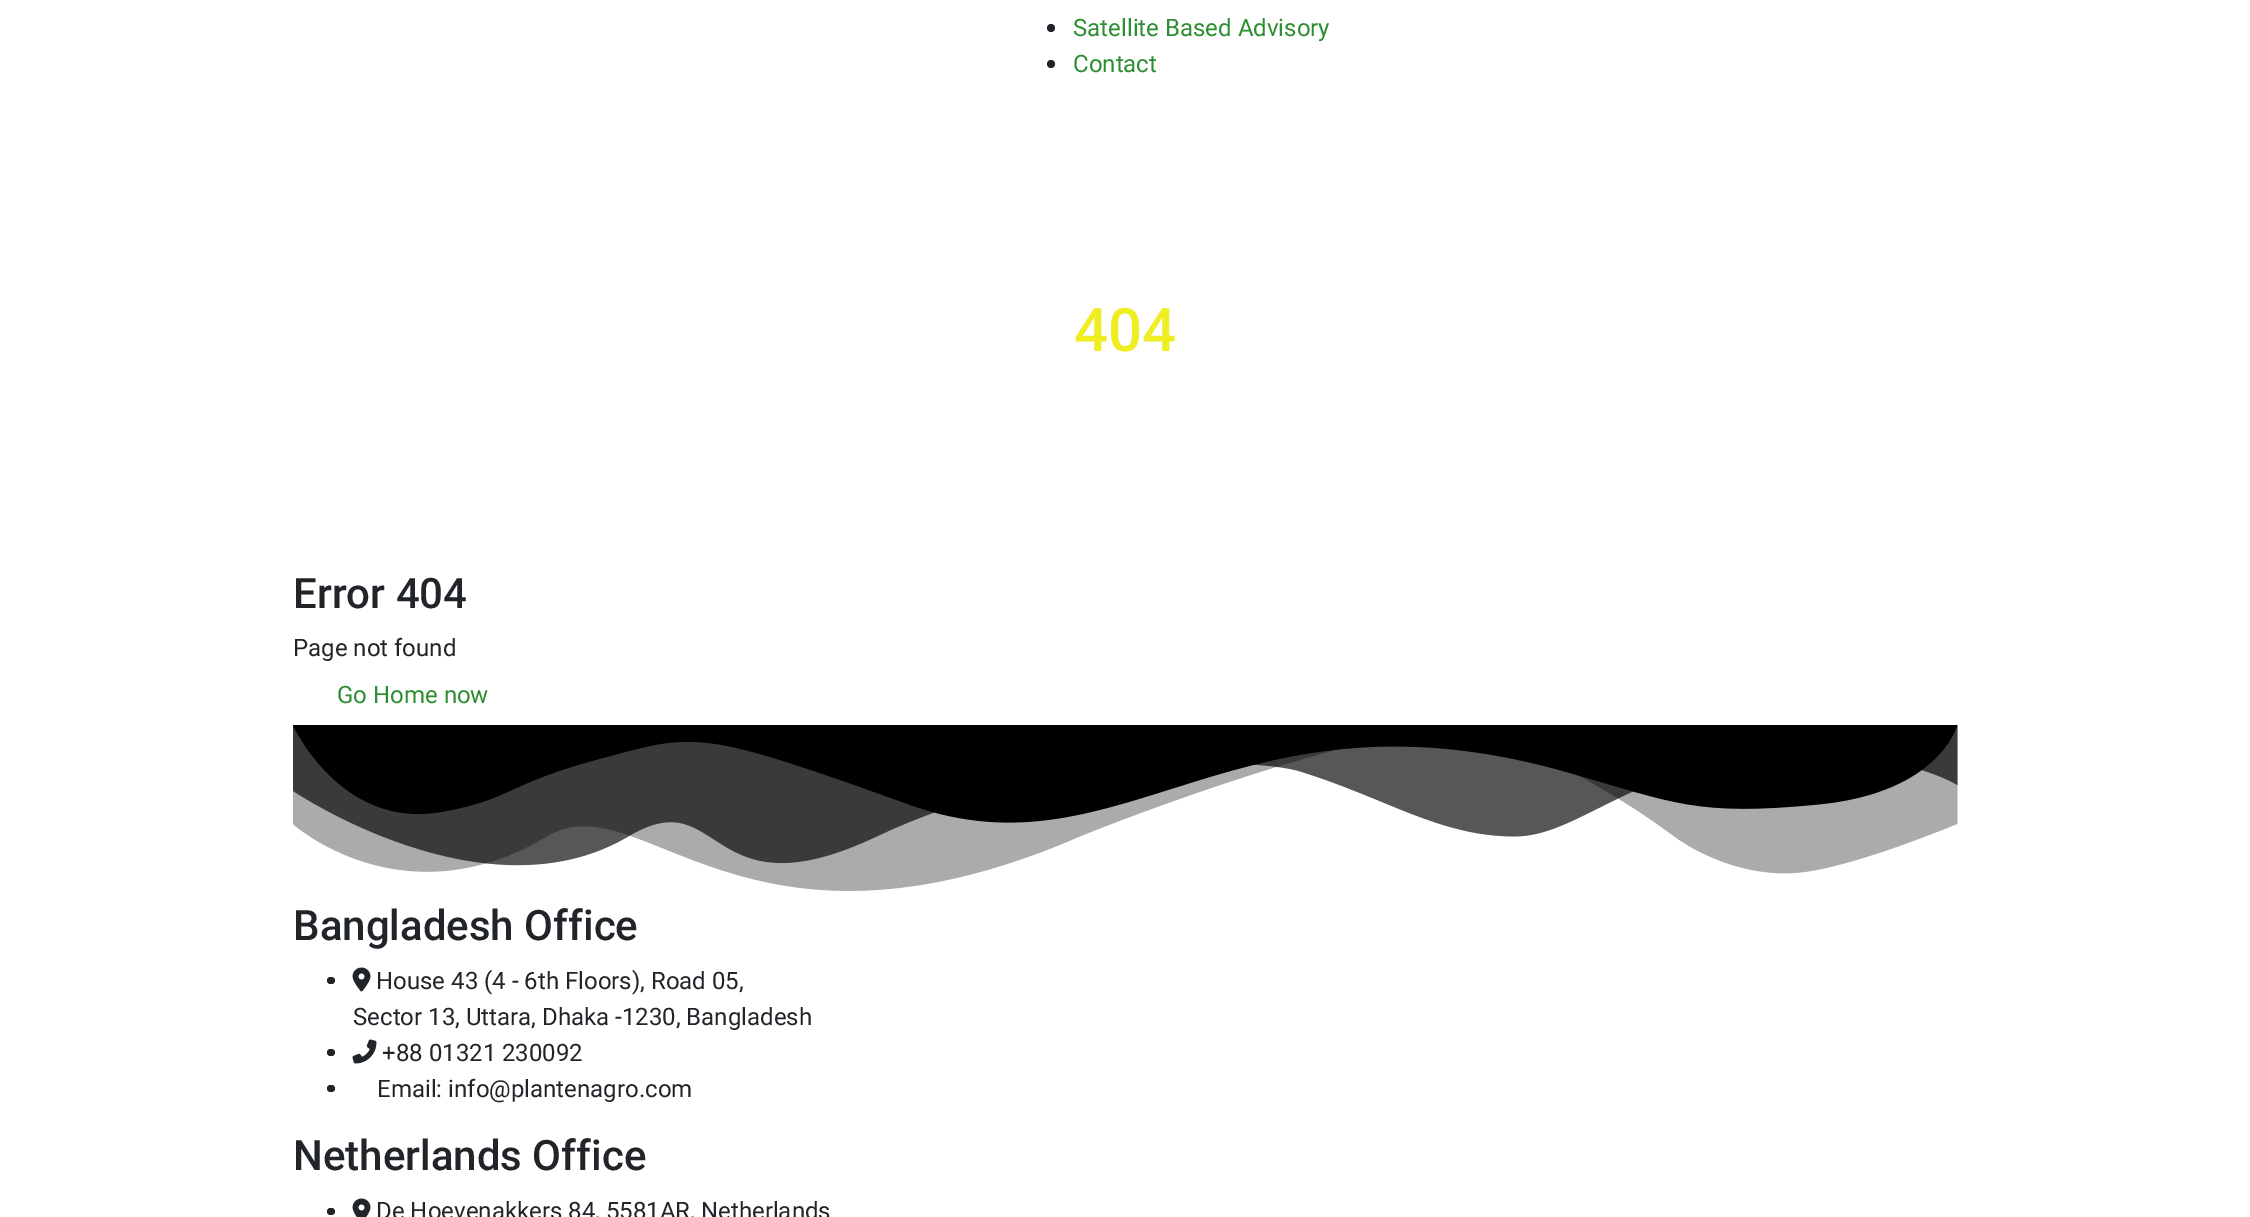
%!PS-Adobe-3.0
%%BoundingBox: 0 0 2250 1217
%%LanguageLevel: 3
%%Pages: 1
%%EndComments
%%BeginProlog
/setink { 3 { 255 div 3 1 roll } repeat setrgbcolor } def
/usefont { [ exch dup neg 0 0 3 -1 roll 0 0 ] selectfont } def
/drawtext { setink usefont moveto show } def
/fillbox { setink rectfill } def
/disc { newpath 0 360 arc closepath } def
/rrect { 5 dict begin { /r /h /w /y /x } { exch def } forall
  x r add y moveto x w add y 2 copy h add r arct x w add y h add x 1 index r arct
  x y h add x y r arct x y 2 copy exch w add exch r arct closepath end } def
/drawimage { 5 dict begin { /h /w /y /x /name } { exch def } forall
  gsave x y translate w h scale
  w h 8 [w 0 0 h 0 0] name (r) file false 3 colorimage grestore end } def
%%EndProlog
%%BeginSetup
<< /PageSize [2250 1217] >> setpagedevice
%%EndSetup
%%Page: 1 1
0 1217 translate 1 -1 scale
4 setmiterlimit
0 0 2250 1217 255 255 255 fillbox
33 37 41 setink
1051 28 4 disc fill
(Satellite Based Advisory) 1073 36 /Roboto-Regular 24 44 142 49 drawtext
33 37 41 setink
1051 64 4 disc fill
(Contact) 1073 72 /Roboto-Regular 24 44 142 49 drawtext
(404) 1074 351 /Roboto-Medium 60 238 238 34 drawtext
(Error 404) 293 608 /Roboto-Medium 42 33 37 41 drawtext
(Page not found) 293 656 /Roboto-Regular 24 33 37 41 drawtext
(Go Home now) 337 703 /Roboto-Regular 24 44 142 49 drawtext
(assets/img1.rgb) 293 725 1665 166 drawimage
(Bangladesh Office) 293 940 /Roboto-Medium 42 33 37 41 drawtext
327 977 8 7 3.5 rrect fill
(assets/img2.rgb) 352 967 19 25 drawimage
(House 43 \(4 - 6th Floors\), Road 05,) 376 989 /Roboto-Regular 24 33 37 41 drawtext
(Sector 13, Uttara, Dhaka -1230, Bangladesh) 353 1025 /Roboto-Regular 24 33 37 41 drawtext
327 1049 8 7 3.5 rrect fill
(assets/img3.rgb) 352 1039 25 25 drawimage
(+88 01321 230092) 382 1061 /Roboto-Regular 24 33 37 41 drawtext
327 1085 8 7 3.5 rrect fill
(Email: info@plantenagro.com) 377 1097 /Roboto-Regular 24 33 37 41 drawtext
(Netherlands Office) 293 1170 /Roboto-Medium 42 33 37 41 drawtext
327 1208 8 7 3.5 rrect fill
(assets/img4.rgb) 352 1198 19 19 drawimage
(De Hoevenakkers 84, 5581AR, Netherlands) 376 1219 /Roboto-Regular 24 33 37 41 drawtext
showpage
%%EOF
